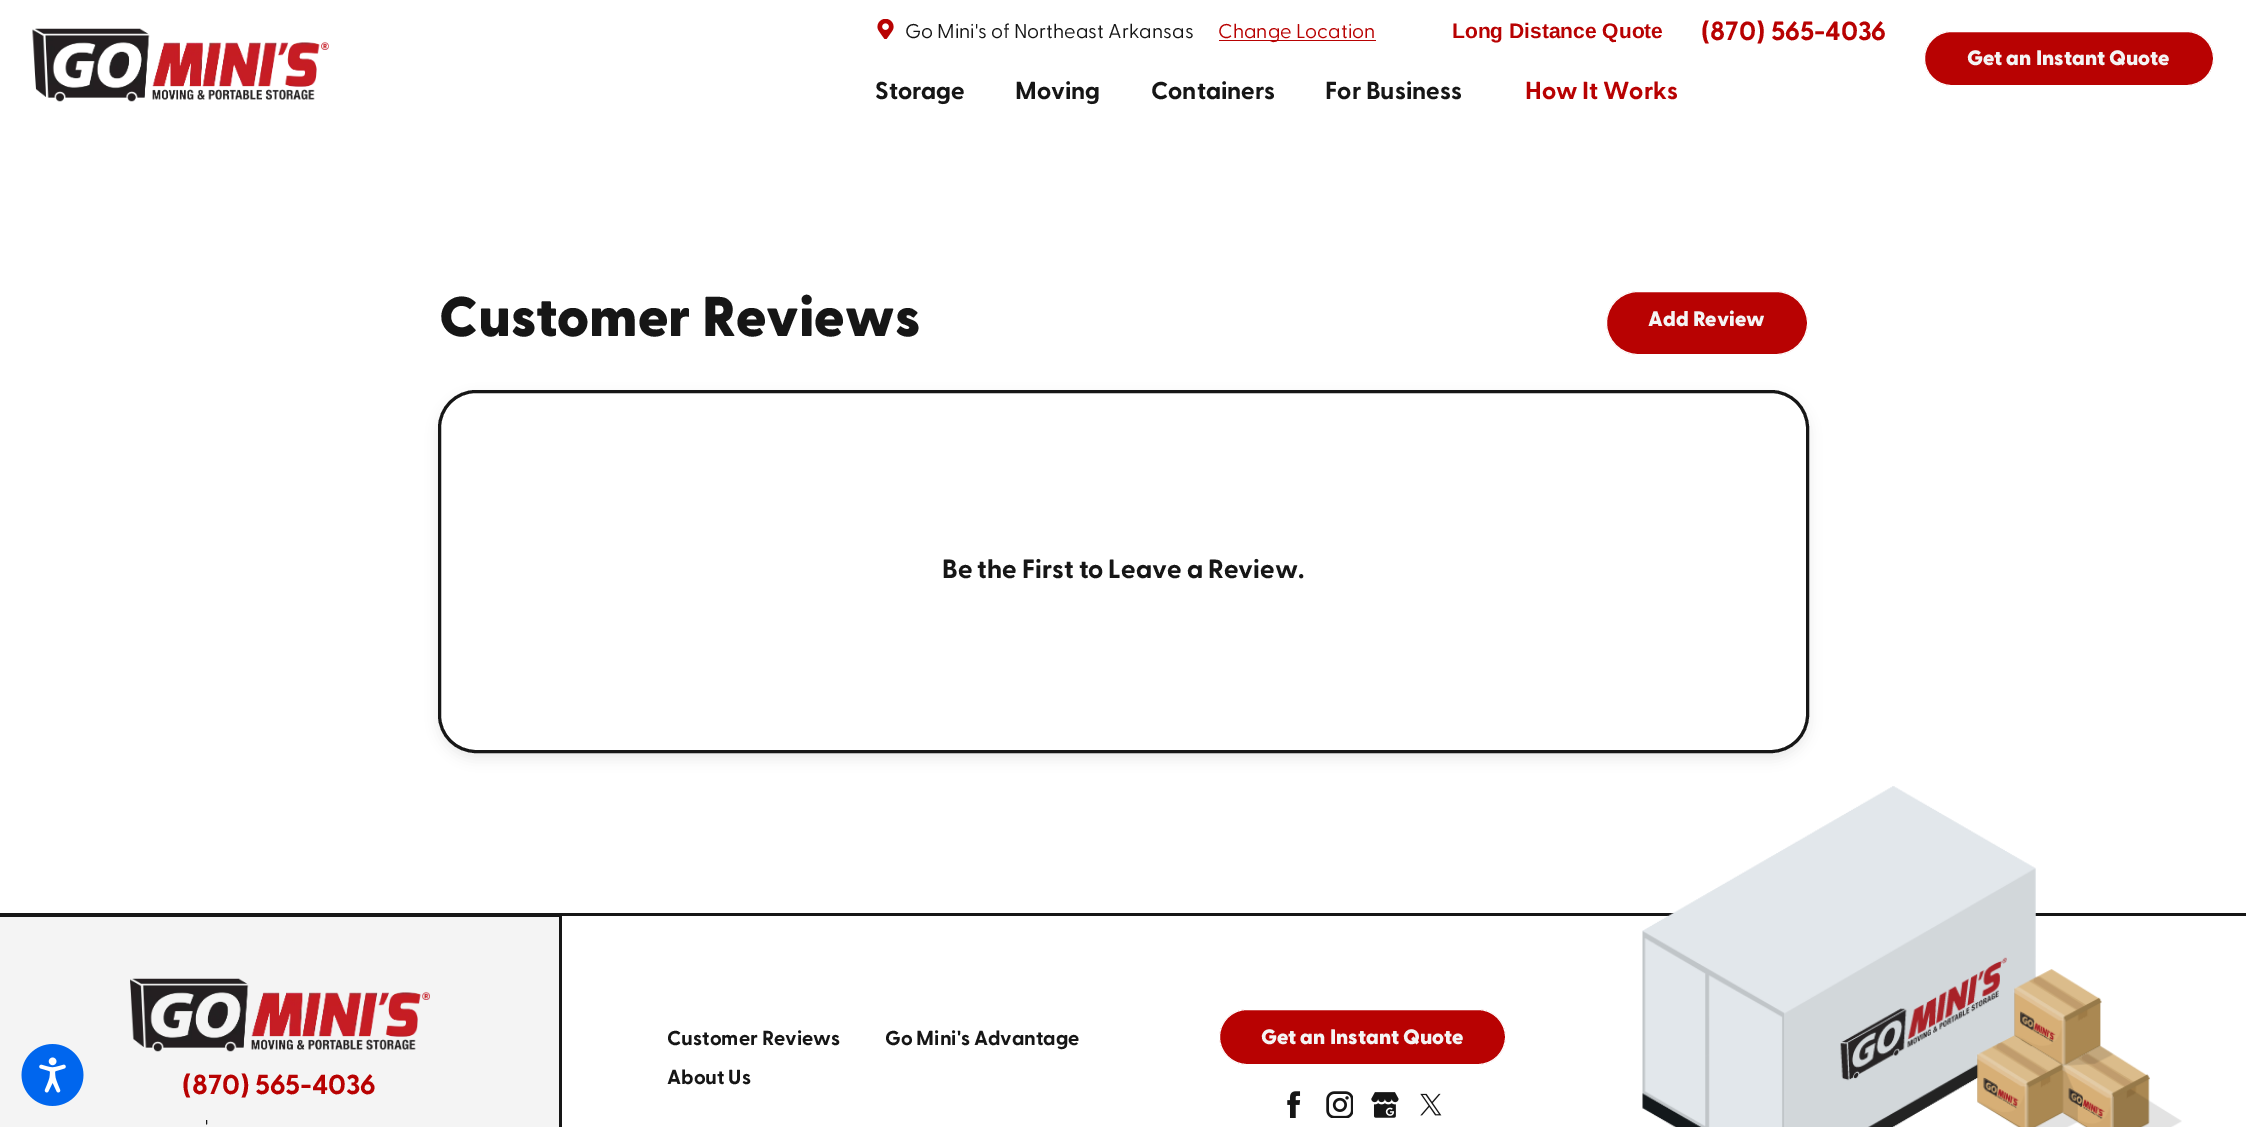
%!PS-Adobe-3.0
%%BoundingBox: 0 0 2246 1127
%%LanguageLevel: 3
%%Pages: 1
%%EndComments
%%BeginProlog
/setink { 3 { 255 div 3 1 roll } repeat setrgbcolor } def
/usefont { [ exch dup neg 0 0 3 -1 roll 0 0 ] selectfont } def
/drawtext { setink usefont moveto show } def
/fillbox { setink rectfill } def
/setalpha { dup .setfillconstantalpha .setstrokeconstantalpha } def
/rrect { 5 dict begin { /r /h /w /y /x } { exch def } forall
  x r add y moveto x w add y 2 copy h add r arct x w add y h add x 1 index r arct
  x y h add x y r arct x y 2 copy exch w add exch r arct closepath end } def
/softshadow { 12 dict begin { /a /b /q /h /w /y /x } { exch def } forall gsave /was 0 def
  9 -2 -9 { dup b mul 4 div /e exch def 1 sub .425 mul 2.718 exch exp 1 add a .99 .min exch div /now exch def
    1 1 now sub 1 was sub div sub setalpha /was now def
    w h .min e 2 mul add 0 gt { x e sub y e sub w e 2 mul add h e 2 mul add
      q e add b .6 mul add w h .min 2 div e add .min 0 .max rrect fill } if } for grestore end } def
/drawimage { 5 dict begin { /h /w /y /x /name } { exch def } forall
  gsave x y translate w h scale
  w h 8 [w 0 0 h 0 0] name (r) file false 3 colorimage grestore end } def
%%EndProlog
%%BeginSetup
<< /PageSize [2246 1127] /PageUsesTransparency true >> setpagedevice
%%EndSetup
%%Page: 1 1
0 .pushpdf14devicefilter
0 1127 translate 1 -1 scale
4 setmiterlimit
0 0 2246 1127 255 255 255 fillbox
(assets/img1.rgb) 32 28 297 74 drawimage
(assets/img2.rgb) 877 19 17 20 drawimage
(Go Mini's of Northeast Arkansas) 905 38 /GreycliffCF-Regular 20 22 22 22 drawtext
1219 40 157 1 184 2 2 fillbox
(Change Location) 1218 38 /GreycliffCF-Regular 20 184 2 2 drawtext
(Long Distance Quote) 1452 38 /LiberationSans-Bold 21 184 2 2 drawtext
(\(870\) 565-4036) 1701 40 /GreycliffCF-Bold 26.25 184 2 2 drawtext
(Storage) 875 99 /GreycliffCF-Bold 24.5 22 22 22 drawtext
(Moving) 1015 99 /GreycliffCF-Bold 24.5 22 22 22 drawtext
(Containers) 1151 99 /GreycliffCF-Bold 24.5 22 22 22 drawtext
(For Business) 1325 99 /GreycliffCF-Bold 24.5 22 22 22 drawtext
(How It Works) 1525 99 /GreycliffCF-Bold 24.5 184 2 2 drawtext
1924.5 31.5 289 54 27 rrect gsave fill grestore
255 255 255 setink
stroke
(Get an Instant Quote) 1967 65 /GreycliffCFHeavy-Black 21 244 244 244 drawtext
0 917 559 210 244 244 244 fillbox
(assets/img3.rgb) 21 1044 63 62 drawimage
(Customer Reviews) 439 336 /GreycliffCFHeavy-Black 56 22 22 22 drawtext
184 2 2 setink
1606.5 291.5 201 63 31.5 rrect gsave fill grestore
255 255 255 setink
stroke
(Add Review) 1648 326 /GreycliffCFHeavy-Black 21 244 244 244 drawtext
gsave
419 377 moveto 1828 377 lineto 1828 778 lineto 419 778 lineto closepath 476 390 moveto 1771 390 lineto 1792 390 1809 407 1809 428 curveto 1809 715 lineto 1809 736 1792 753 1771 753 curveto 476 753 lineto 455 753 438 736 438 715 curveto 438 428 lineto 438 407 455 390 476 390 curveto closepath eoclip newpath
0 0 0 setink
438 396 1371 363 38 6 0.08 softshadow
grestore
22 22 22 setink
3 setlinewidth
439.5 391.5 1368 360 36.5 rrect stroke
(Be the First to Leave a Review.) 942 578 /GreycliffCF-Bold 26.25 22 22 22 drawtext
0 913 2246 3 22 22 22 fillbox
(Customer Reviews) 667 1045 /GreycliffCF-Bold 20.25 22 22 22 drawtext
(Go Mini's Advantage) 885 1045 /GreycliffCF-Bold 20.25 22 22 22 drawtext
(About Us) 667 1084 /GreycliffCF-Bold 20.25 22 22 22 drawtext
184 2 2 setink
1219.5 1009.5 286 55 27.5 rrect gsave fill grestore
255 255 255 setink
1 setlinewidth
stroke
(Get an Instant Quote) 1261 1044 /GreycliffCFHeavy-Black 21 244 244 244 drawtext
(assets/img4.rgb) 1287 1091 14 27 drawimage
(assets/img5.rgb) 1326 1091 27 27 drawimage
(assets/img6.rgb) 1371 1092 28 26 drawimage
(assets/img7.rgb) 1420 1093 22 23 drawimage
(assets/img8.rgb) 1642 786 540 341 drawimage
0 916 561 1 22 22 22 fillbox
559 914 3 213 22 22 22 fillbox
(assets/img9.rgb) 130 978 300 74 drawimage
(\(870\) 565-4036) 182 1094 /GreycliffCF-Bold 27.5 184 2 2 drawtext
(') 205 1134 /GreycliffCF-Regular 20 22 22 22 drawtext
.poppdf14devicefilter showpage
%%EOF
